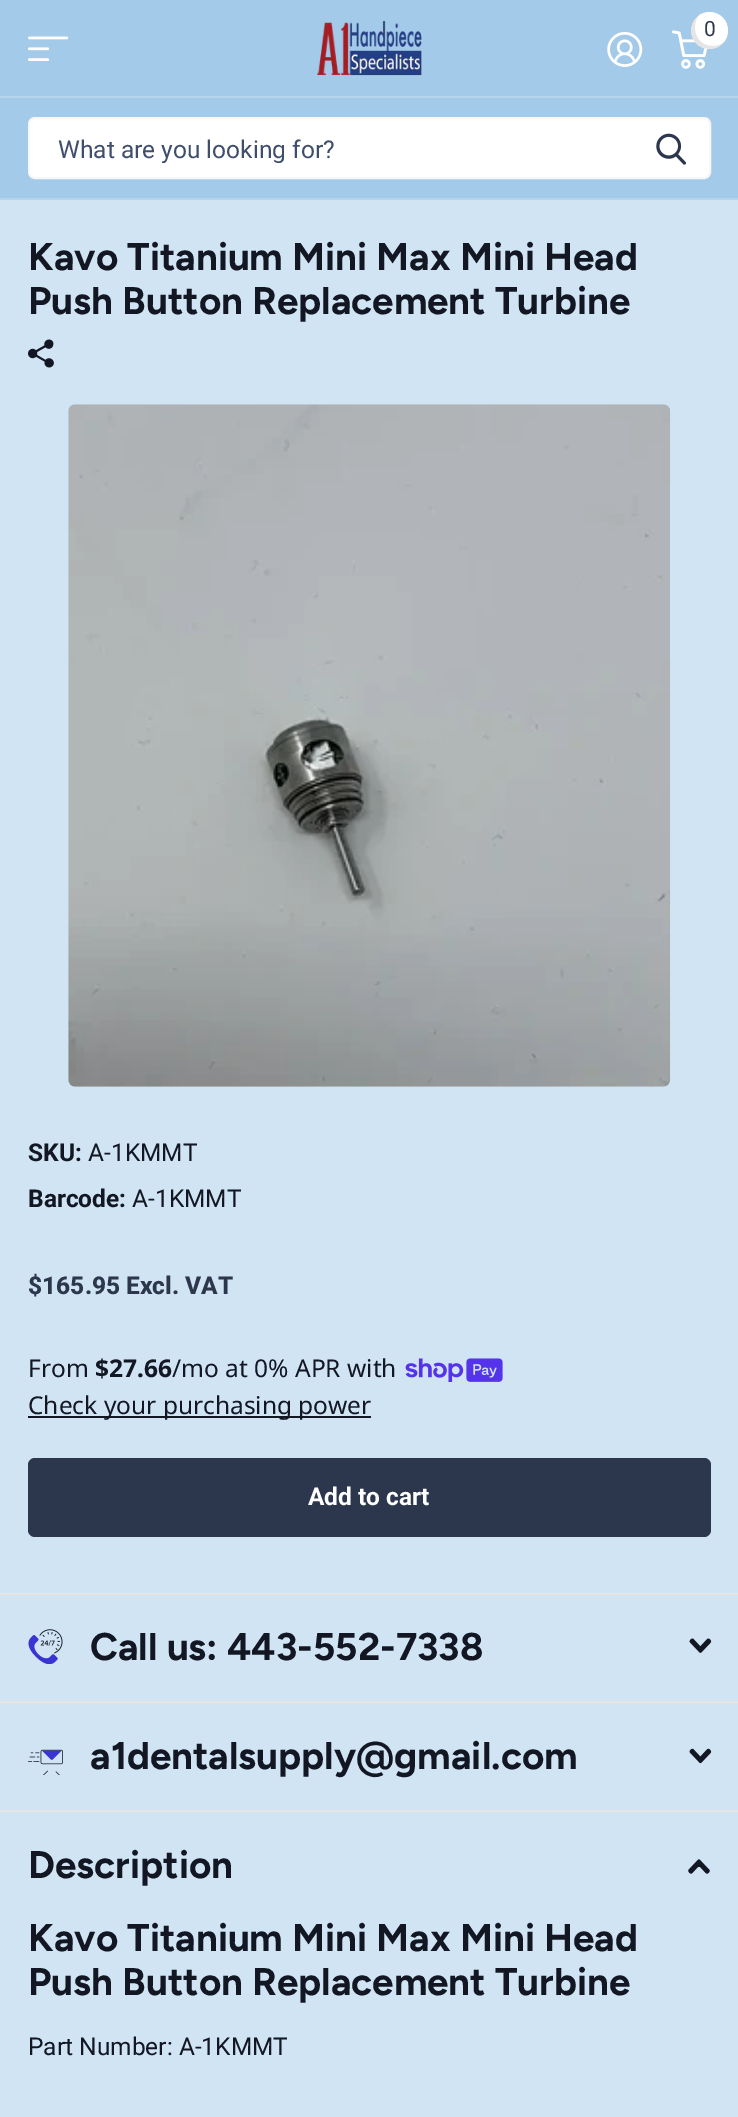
%!PS-Adobe-3.0
%%BoundingBox: 0 0 738 2117
%%LanguageLevel: 3
%%Pages: 1
%%EndComments
%%BeginProlog
/setink { 3 { 255 div 3 1 roll } repeat setrgbcolor } def
/usefont { [ exch dup neg 0 0 3 -1 roll 0 0 ] selectfont } def
/drawtext { setink usefont moveto show } def
/fillbox { setink rectfill } def
/setalpha { dup .setfillconstantalpha .setstrokeconstantalpha } def
/disc { newpath 0 360 arc closepath } def
/rrect { 5 dict begin { /r /h /w /y /x } { exch def } forall
  x r add y moveto x w add y 2 copy h add r arct x w add y h add x 1 index r arct
  x y h add x y r arct x y 2 copy exch w add exch r arct closepath end } def
/drawimage { 5 dict begin { /h /w /y /x /name } { exch def } forall
  gsave x y translate w h scale
  w h 8 [w 0 0 h 0 0] name (r) file false 3 colorimage grestore end } def
%%EndProlog
%%BeginSetup
<< /PageSize [738 2117] /PageUsesTransparency true >> setpagedevice
%%EndSetup
%%Page: 1 1
0 .pushpdf14devicefilter
0 2117 translate 1 -1 scale
4 setmiterlimit
0 0 738 2117 209 228 244 fillbox
0 0 738 198 163 202 233 fillbox
(assets/img1.rgb) 28 36 41 25 drawimage
(assets/img2.rgb) 317 21 105 55 drawimage
(assets/img3.rgb) 672 30 36 39 drawimage
255 255 255 setink
709.5 30.5 18.5 disc fill
0.1 setalpha
0 0 0 setink
723.5 42.5 moveto 721 44.5 717.5 46 713 46 curveto 695 46 690.5 25.5 699 15 curveto 689.5 21.5 688 35.5 696.5 43.5 curveto 704 51 716.5 50.5 723.5 42.5 curveto closepath fill
1 setalpha
(0) 704 36 /Roboto-Regular 21 44 55 77 drawtext
(assets/img4.rgb) 607 31 36 36 drawimage
0 96 738 2 182 213 236 fillbox
0 198 738 2 182 213 236 fillbox
255 255 255 setink
29 118 681 60 6 rrect gsave fill grestore
247 247 247 setink
2 setlinewidth
stroke
gsave
58 135 572 28 rectclip
(What are you looking for?) 58 158 /Roboto-Regular 24.5 63 78 109 drawtext
grestore
(assets/img5.rgb) 656 133 30 32 drawimage
(Kavo Titanium Mini Max Mini Head) 28 270 /Figtree-Bold 38.5 18 23 35 drawtext
(Push Button Replacement Turbine) 28 314 /Figtree-Bold 38.5 18 23 35 drawtext
(assets/img6.rgb) 28 339 26 29 drawimage
(assets/img7.rgb) 68 404 603 683 drawimage
(SKU:) 28 1161 /Roboto-Bold 24.5 18 23 35 drawtext
(A-1KMMT) 88 1161 /Roboto-Regular 24.5 18 23 35 drawtext
(Barcode:) 28 1207 /Roboto-Bold 24.5 18 23 35 drawtext
(A-1KMMT) 132 1207 /Roboto-Regular 24.5 18 23 35 drawtext
($165.95 Excl. VAT) 28 1294 /Roboto-ExtraBold 24.5 44 55 77 drawtext
(From) 28 1377 /NotoSans-Regular 24.5 18 23 35 drawtext
($27.66) 95 1377 /NotoSans-Bold 24.5 18 23 35 drawtext
(/mo at 0% APR with) 172 1377 /NotoSans-Regular 24.5 18 23 35 drawtext
(assets/img8.rgb) 405 1358 98 24 drawimage
28 1416 343 2 18 23 35 fillbox
(Check your purchasing power) 28 1414 /NotoSans-Regular 24.5 18 23 35 drawtext
44 55 77 setink
28 1458 683 79 7 rrect fill
(Add to cart) 308 1505 /Roboto-Bold 24.5 255 255 255 drawtext
0 1593 738 2 229 229 229 fillbox
0 1701 738 2 229 229 229 fillbox
(assets/img9.rgb) 28 1629 35 35 drawimage
(Call us: 443-552-7338) 90 1660 /Figtree-Bold 38.5 18 23 35 drawtext
(assets/img10.rgb) 689 1638 23 15 drawimage
(assets/img11.rgb) 28 1749 35 26 drawimage
(a1dentalsupply@gmail.com) 90 1769 /Figtree-Bold 38.5 18 23 35 drawtext
(assets/img12.rgb) 689 1748 23 16 drawimage
0 1810 738 2 229 229 229 fillbox
(Description) 28 1878 /Figtree-Bold 38.5 18 23 35 drawtext
(assets/img13.rgb) 688 1859 22 15 drawimage
(Kavo Titanium Mini Max Mini Head) 28 1951 /Figtree-Bold 38.5 18 23 35 drawtext
(Push Button Replacement Turbine) 28 1995 /Figtree-Bold 38.5 18 23 35 drawtext
(Part Number: A-1KMMT) 28 2055 /Roboto-Regular 24.5 18 23 35 drawtext
.poppdf14devicefilter showpage
%%EOF
